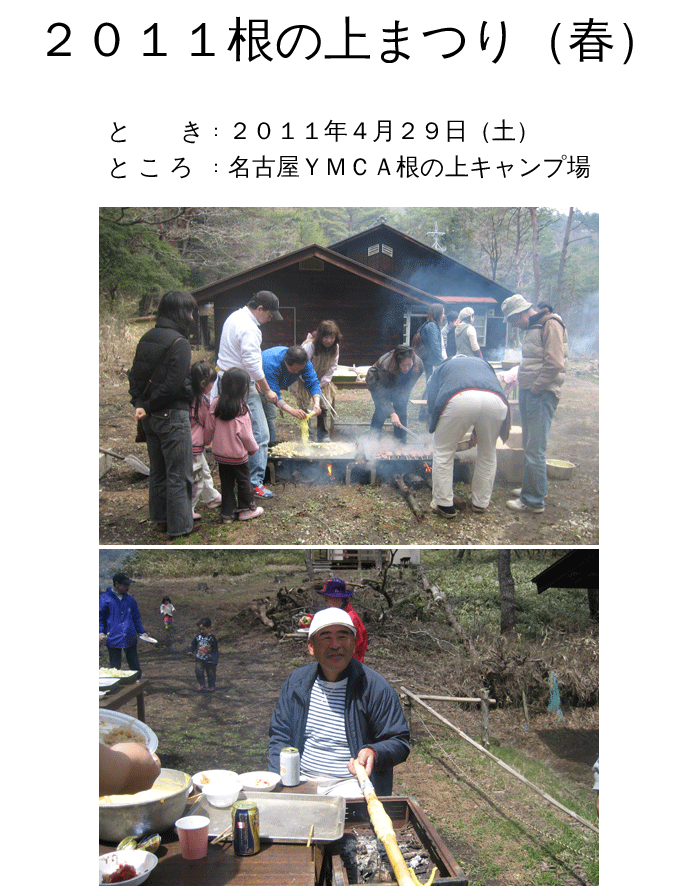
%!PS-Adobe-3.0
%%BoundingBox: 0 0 698 886
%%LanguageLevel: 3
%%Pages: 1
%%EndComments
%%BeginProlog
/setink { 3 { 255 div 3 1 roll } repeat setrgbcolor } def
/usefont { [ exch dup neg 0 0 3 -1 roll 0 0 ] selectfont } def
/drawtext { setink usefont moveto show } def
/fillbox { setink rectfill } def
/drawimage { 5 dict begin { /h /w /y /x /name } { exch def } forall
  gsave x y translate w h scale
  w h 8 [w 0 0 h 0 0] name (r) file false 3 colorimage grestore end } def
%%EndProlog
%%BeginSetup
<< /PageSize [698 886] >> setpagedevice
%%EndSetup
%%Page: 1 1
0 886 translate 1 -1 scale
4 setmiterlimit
0 0 698 886 255 255 255 fillbox
(２０１１根の上まつり（春）) 35 56 /WenQuanYiZenHei-Medium 48 0 0 0 drawtext
(と　　き) 107 139 /WenQuanYiZenHei-Medium 24 0 0 0 drawtext
(：) 208 136 /WenQuanYiZenHei-Medium 16 0 0 0 drawtext
(２０１１年４月２９日（土）) 228 139 /WenQuanYiZenHei-Medium 24 0 0 0 drawtext
107 175 moveto -1 0 32 (と こ ろ) widthshow
(：) 208 172 /WenQuanYiZenHei-Medium 16 0 0 0 drawtext
(名古屋ＹＭＣＡ根の上キャンプ場) 228 175 /WenQuanYiZenHei-Medium 24 0 0 0 drawtext
(assets/img1.rgb) 99 207 500 338 drawimage
(assets/img2.rgb) 99 549 500 337 drawimage
showpage
%%EOF
